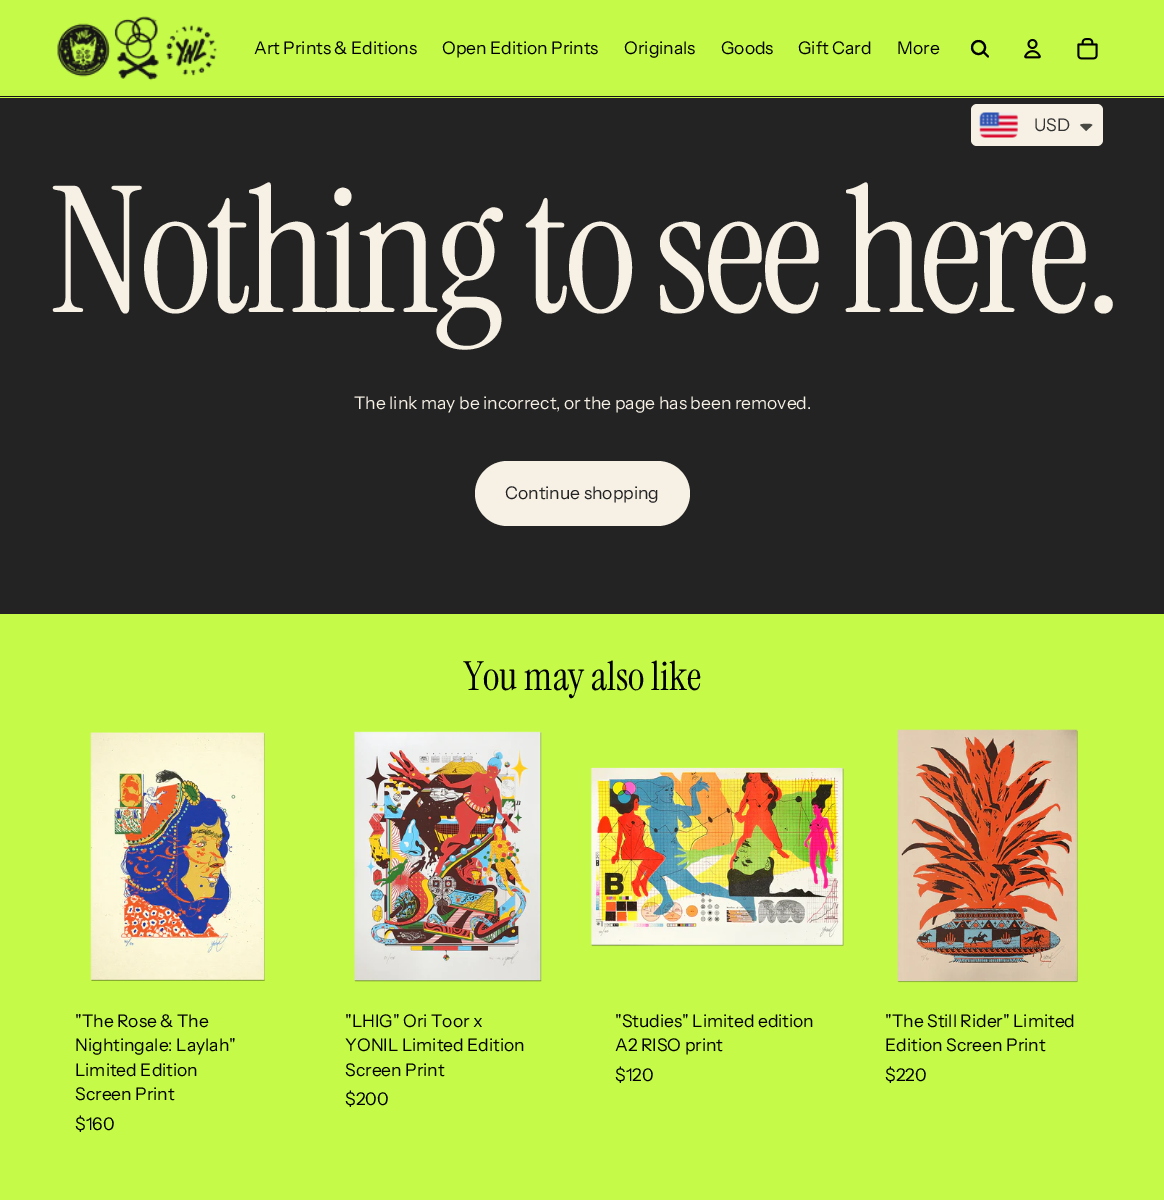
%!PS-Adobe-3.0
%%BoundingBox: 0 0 1164 1200
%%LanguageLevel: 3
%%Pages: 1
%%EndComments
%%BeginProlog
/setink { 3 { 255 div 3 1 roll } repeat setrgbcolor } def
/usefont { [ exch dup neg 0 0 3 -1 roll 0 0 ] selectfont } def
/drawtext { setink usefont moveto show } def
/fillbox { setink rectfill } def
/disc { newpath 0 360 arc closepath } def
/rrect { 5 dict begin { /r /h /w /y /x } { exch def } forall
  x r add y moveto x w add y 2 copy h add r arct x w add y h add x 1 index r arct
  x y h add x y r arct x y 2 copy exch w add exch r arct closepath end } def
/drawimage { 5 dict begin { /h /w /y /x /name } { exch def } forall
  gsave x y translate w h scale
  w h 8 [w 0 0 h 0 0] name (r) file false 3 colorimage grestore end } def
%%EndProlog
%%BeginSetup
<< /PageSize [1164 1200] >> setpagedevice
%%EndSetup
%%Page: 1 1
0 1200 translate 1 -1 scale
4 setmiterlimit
0 0 1164 1200 197 251 72 fillbox
0 96 1164 1 21 21 21 fillbox
(assets/img1.rgb) 57 16 160 65 drawimage
(Art Prints & Editions) 254 54 /InstrumentSans-Regular 17.5 0 0 0 drawtext
(Open Edition Prints) 442 54 /InstrumentSans-Regular 17.5 0 0 0 drawtext
(Originals) 624 54 /InstrumentSans-Regular 17.5 0 0 0 drawtext
(Goods) 721 54 /InstrumentSans-Regular 17.5 0 0 0 drawtext
(Gift Card) 798 54 /InstrumentSans-Regular 17.5 0 0 0 drawtext
(More) 897 54 /InstrumentSans-Regular 17.5 0 0 0 drawtext
2.1 setlinewidth
978.5 47.5 6.5 disc stroke
1 setlinecap
1 setlinejoin
983.5 52 moveto 988 56.5 lineto stroke
(assets/img2.rgb) 1024 38 17 21 drawimage
(assets/img3.rgb) 1077 38 21 22 drawimage
0 98 1164 516 35 35 35 fillbox
246 240 229 setink
971 104 132 42 6 rrect fill
(assets/img4.rgb) 979 112 39 26 drawimage
(USD) 1034 131 /InstrumentSans-Regular 17.5 51 51 51 drawtext
71 73 66 setink
1082.5 124 moveto 1085 124 1090.5 123 1092.5 125 curveto 1086 131 lineto 1080 125 lineto 1080.5 124.5 1081.5 124 1082.5 124 curveto closepath fill
/InstrumentSerif-Regular 175.5 usefont
246 240 229 setink
50 312 moveto -5.25 0 (Nothing to see here.) ashow
(The link may be incorrect, or the page has been removed.) 354 409 /InstrumentSans-Regular 17.5 246 240 229 drawtext
475 461 215 65 32.5 rrect fill
(Continue shopping) 505 499 /InstrumentSans-Regular 17.5 35 35 35 drawtext
(You may also like) 464 690 /InstrumentSerif-Regular 40 0 0 0 drawtext
(assets/img5.rgb) 90 732 175 249 drawimage
("The Rose & The) 75 1027 /InstrumentSans-Regular 17.5 0 0 0 drawtext
(Nightingale: Laylah") 75 1051 /InstrumentSans-Regular 17.5 0 0 0 drawtext
(Limited Edition) 75 1076 /InstrumentSans-Regular 17.5 0 0 0 drawtext
(Screen Print) 75 1100 /InstrumentSans-Regular 17.5 0 0 0 drawtext
($160) 75 1130 /InstrumentSans-Regular 17.5 0 0 0 drawtext
(assets/img6.rgb) 354 731 188 251 drawimage
("LHIG" Ori Toor x) 345 1027 /InstrumentSans-Regular 17.5 0 0 0 drawtext
(YONIL Limited Edition) 345 1051 /InstrumentSans-Regular 17.5 0 0 0 drawtext
(Screen Print) 345 1076 /InstrumentSans-Regular 17.5 0 0 0 drawtext
($200) 345 1105 /InstrumentSans-Regular 17.5 0 0 0 drawtext
(assets/img7.rgb) 590 767 254 180 drawimage
("Studies" Limited edition) 615 1027 /InstrumentSans-Regular 17.5 0 0 0 drawtext
(A2 RISO print) 615 1051 /InstrumentSans-Regular 17.5 0 0 0 drawtext
($120) 615 1081 /InstrumentSans-Regular 17.5 0 0 0 drawtext
(assets/img8.rgb) 897 729 181 254 drawimage
("The Still Rider" Limited) 885 1027 /InstrumentSans-Regular 17.5 0 0 0 drawtext
(Edition Screen Print) 885 1051 /InstrumentSans-Regular 17.5 0 0 0 drawtext
($220) 885 1081 /InstrumentSans-Regular 17.5 0 0 0 drawtext
showpage
%%EOF
